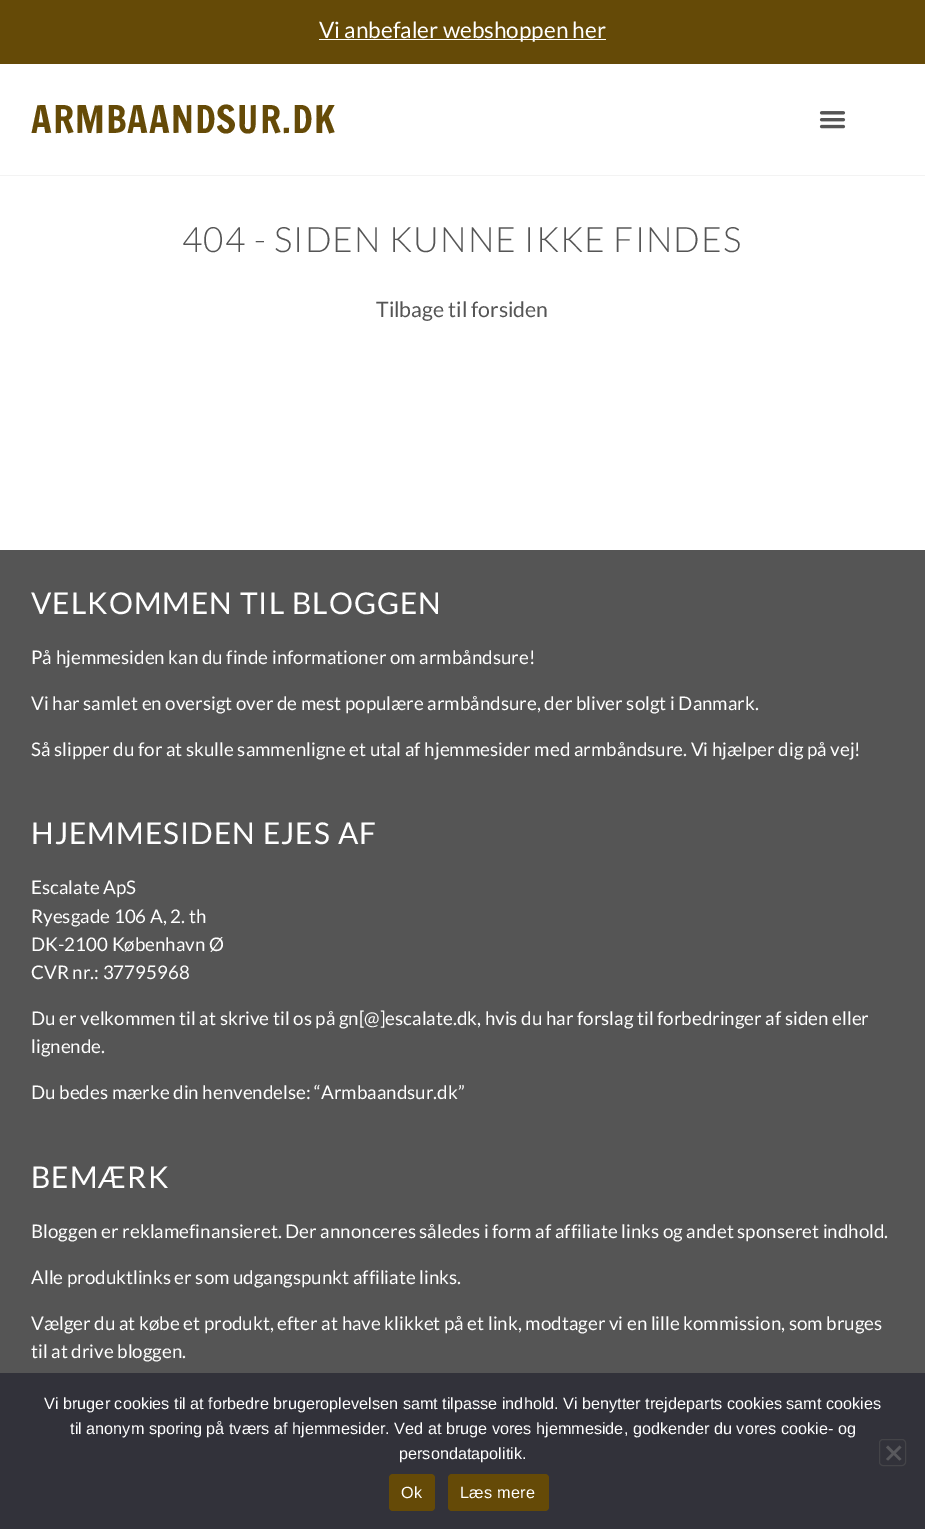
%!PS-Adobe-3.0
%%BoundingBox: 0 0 925 1529
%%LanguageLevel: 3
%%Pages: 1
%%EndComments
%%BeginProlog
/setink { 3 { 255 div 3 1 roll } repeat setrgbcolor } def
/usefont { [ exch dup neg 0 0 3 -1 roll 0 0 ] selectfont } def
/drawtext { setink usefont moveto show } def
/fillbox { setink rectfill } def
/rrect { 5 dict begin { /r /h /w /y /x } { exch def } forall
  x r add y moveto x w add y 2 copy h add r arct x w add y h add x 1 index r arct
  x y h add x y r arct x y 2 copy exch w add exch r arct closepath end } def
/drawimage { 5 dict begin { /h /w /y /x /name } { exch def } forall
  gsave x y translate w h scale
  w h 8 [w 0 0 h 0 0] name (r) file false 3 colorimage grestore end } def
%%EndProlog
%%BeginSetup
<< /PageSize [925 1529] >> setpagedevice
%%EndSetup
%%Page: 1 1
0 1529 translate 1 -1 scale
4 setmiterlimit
0 0 925 1529 255 255 255 fillbox
0 0 925 64 101 74 7 fillbox
319 39 287 1 255 255 255 fillbox
(Vi anbefaler webshoppen her) 319 38 /Lato-Regular 22.5 255 255 255 drawtext
0 175 925 1 243 243 243 fillbox
/FrancoisOne-Regular 37.5 usefont
101 74 7 setink
31 133 moveto 1 0 (ARMBAANDSUR.DK) ashow
(assets/img1.rgb) 819 111 27 18 drawimage
/Lato-Light 35 usefont
85 85 85 setink
182 252 moveto 1 0 (404 - SIDEN KUNNE IKKE FINDES) ashow
(Tilbage til forsiden) 376 317 /Lato-Regular 21.25 85 85 85 drawtext
0 550 925 823 85 85 85 fillbox
/Lato-Regular 30 usefont
255 255 255 setink
31 614 moveto 1 0 (VELKOMMEN TIL BLOGGEN) ashow
(På hjemmesiden kan du finde informationer om armbåndsure!) 31 664 /Lato-Regular 18.75 255 255 255 drawtext
(Vi har samlet en oversigt over de mest populære armbåndsure, der bliver solgt i Danmark.) 31 710 /Lato-Regular 18.75 255 255 255 drawtext
(Så slipper du for at skulle sammenligne et utal af hjemmesider med armbåndsure. Vi hjælper dig på vej!) 31 756 /Lato-Regular 18.75 255 255 255 drawtext
/Lato-Regular 30 usefont
31 844 moveto 1 0 (HJEMMESIDEN EJES AF) ashow
(Escalate ApS) 31 894 /Lato-Regular 18.75 255 255 255 drawtext
(Ryesgade 106 A, 2. th) 31 923 /Lato-Regular 18.75 255 255 255 drawtext
(DK-2100 København Ø) 31 951 /Lato-Regular 18.75 255 255 255 drawtext
(CVR nr.: 37795968) 31 979 /Lato-Regular 18.75 255 255 255 drawtext
(Du er velkommen til at skrive til os på gn[@]escalate.dk, hvis du har forslag til forbedringer af siden eller) 31 1025 /Lato-Regular 18.75 255 255 255 drawtext
(lignende.) 31 1053 /Lato-Regular 18.75 255 255 255 drawtext
(Du bedes mærke din henvendelse: “Armbaandsur.dk”) 31 1099 /Lato-Regular 18.75 255 255 255 drawtext
/Lato-Regular 30 usefont
31 1188 moveto 1 0 (BEMÆRK) ashow
(Bloggen er reklamefinansieret. Der annonceres således i form af affiliate links og andet sponseret indhold.) 31 1238 /Lato-Regular 18.75 255 255 255 drawtext
(Alle produktlinks er som udgangspunkt affiliate links.) 31 1284 /Lato-Regular 18.75 255 255 255 drawtext
(Vælger du at købe et produkt, efter at have klikket på et link, modtager vi en lille kommission, som bruges) 31 1330 /Lato-Regular 18.75 255 255 255 drawtext
(til at drive bloggen.) 31 1358 /Lato-Regular 18.75 255 255 255 drawtext
0 1373 925 156 50 50 58 fillbox
(Vi bruger cookies til at forbedre brugeroplevelsen samt tilpasse indhold. Vi benytter trejdeparts cookies samt cookies) 44 1409 /LiberationSans-Regular 16.25 255 255 255 drawtext
(til anonym sporing på tværs af hjemmesider. Ved at bruge vores hjemmeside, godkender du vores cookie- og) 70 1434 /LiberationSans-Regular 16.25 255 255 255 drawtext
(persondatapolitik.) 399 1459 /LiberationSans-Regular 16.25 255 255 255 drawtext
68 68 72 setink
879.5 1439.5 26 26 3.5 rrect stroke
89 89 93 setink
899.5 1445.5 moveto 901.5 1447.5 lineto 888 1460.5 lineto 886 1459 lineto closepath fill
886 1447.5 moveto 888 1445.5 lineto 901.5 1459 lineto 899.5 1460.5 lineto closepath fill
101 74 7 setink
389 1474 46 37 4 rrect fill
255 255 255 setink
401 1498 moveto 0.25 0 (Ok) ashow
101 74 7 setink
448 1474 101 37 4 rrect fill
255 255 255 setink
460 1498 moveto 0.25 0 (Læs mere) ashow
showpage
%%EOF
